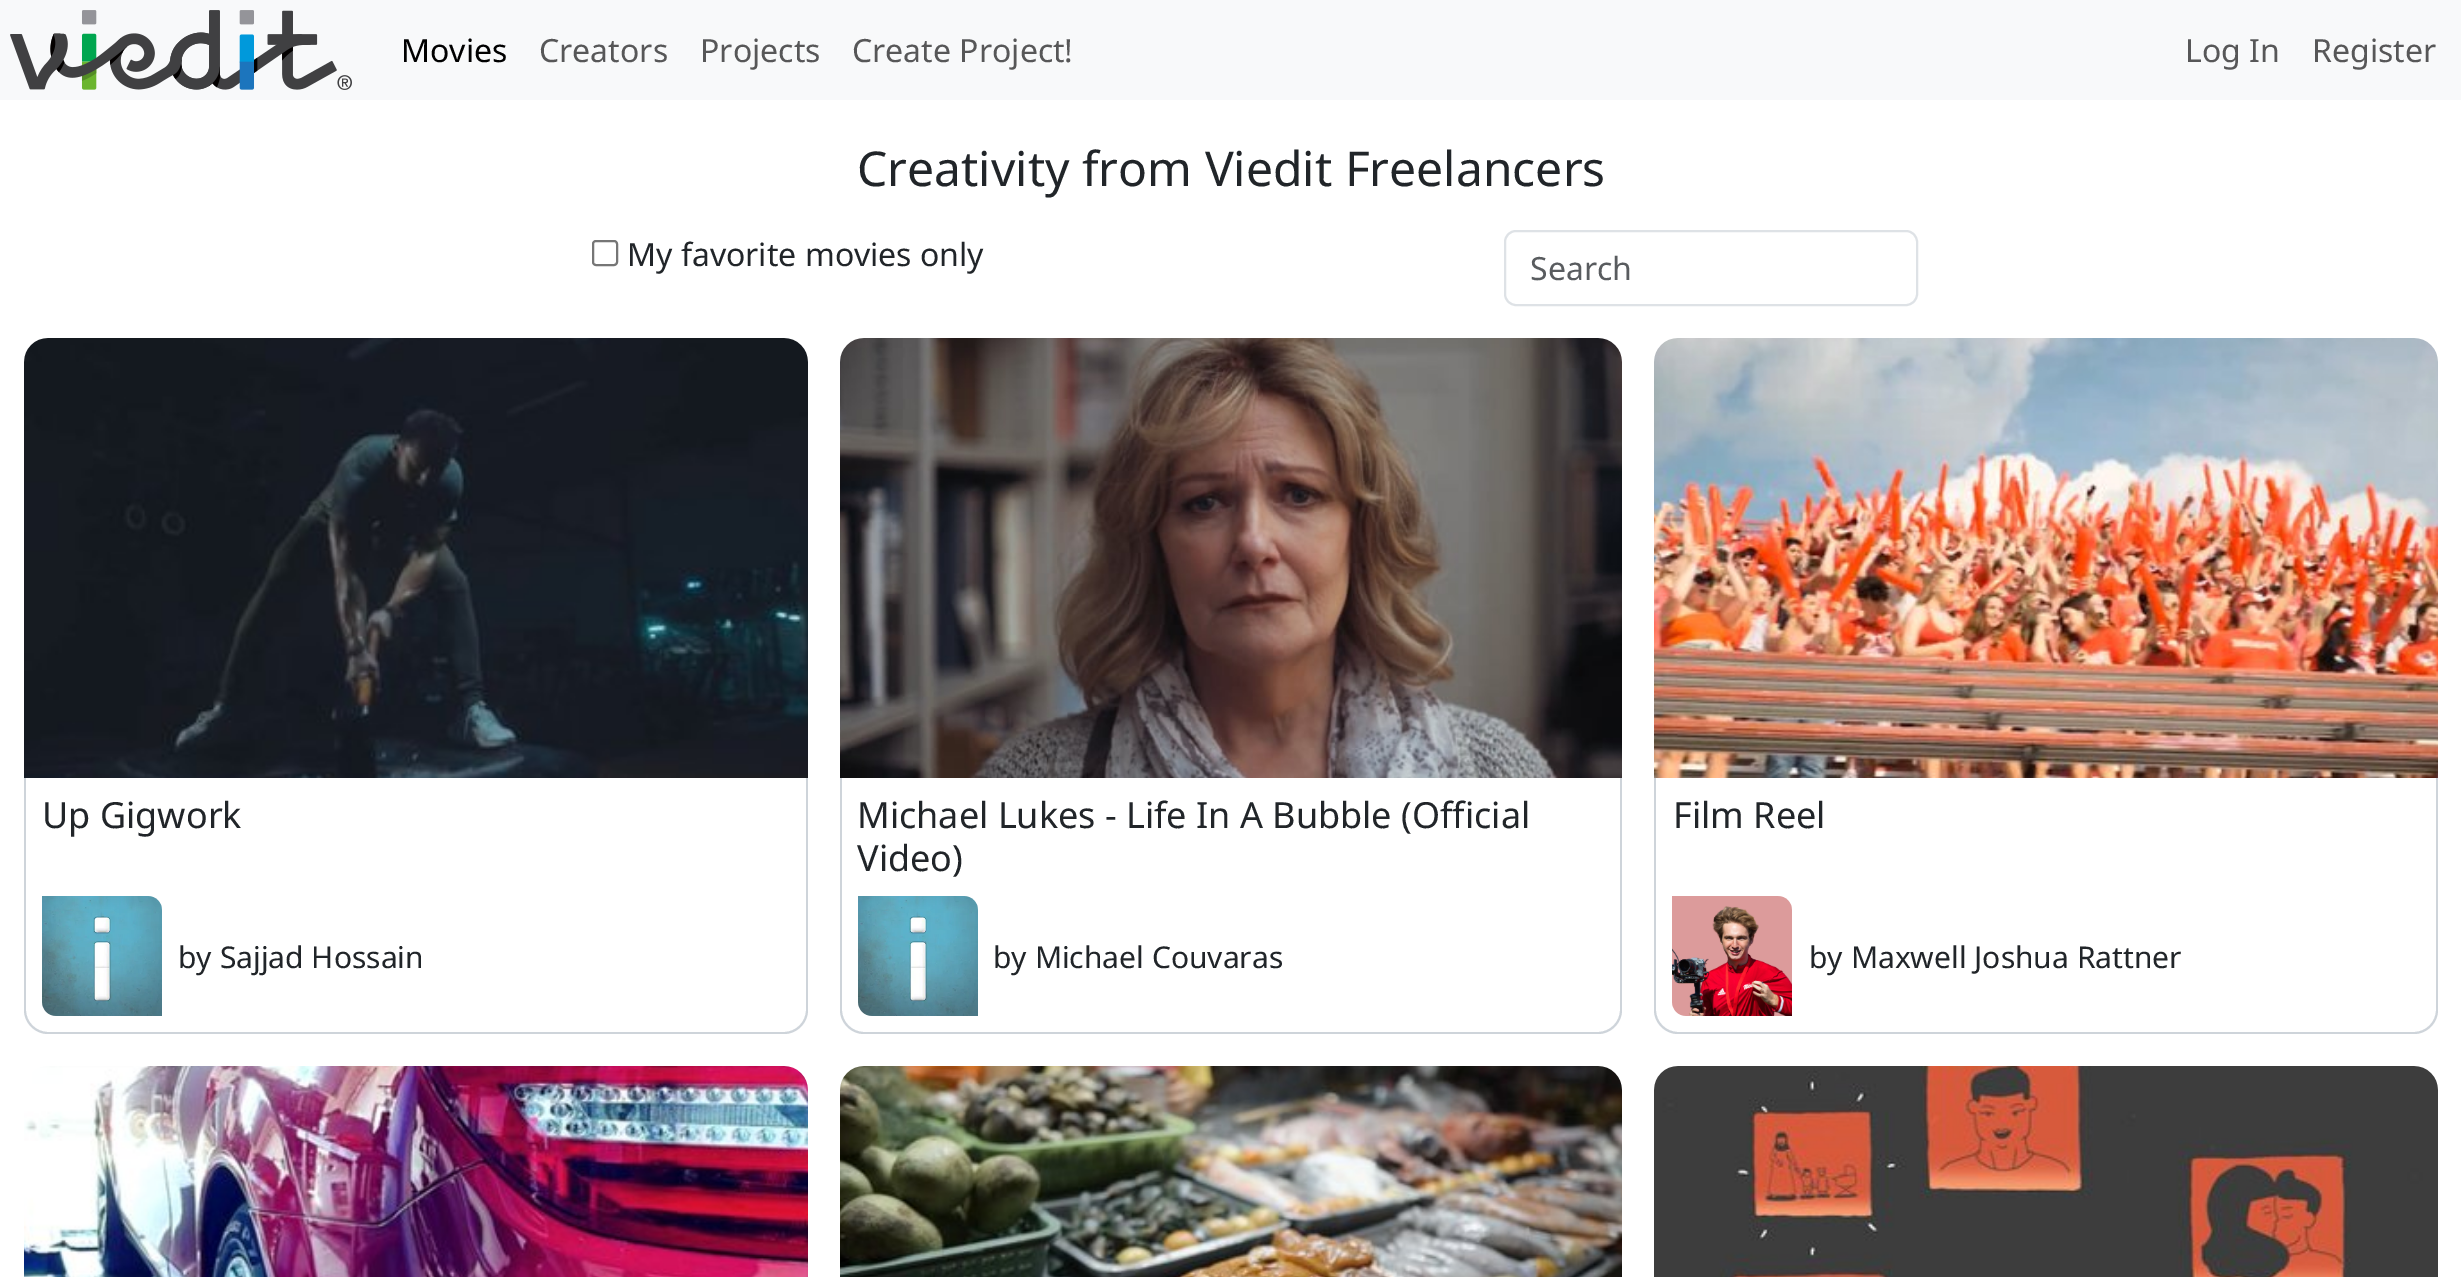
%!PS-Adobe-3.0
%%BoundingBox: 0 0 2461 1277
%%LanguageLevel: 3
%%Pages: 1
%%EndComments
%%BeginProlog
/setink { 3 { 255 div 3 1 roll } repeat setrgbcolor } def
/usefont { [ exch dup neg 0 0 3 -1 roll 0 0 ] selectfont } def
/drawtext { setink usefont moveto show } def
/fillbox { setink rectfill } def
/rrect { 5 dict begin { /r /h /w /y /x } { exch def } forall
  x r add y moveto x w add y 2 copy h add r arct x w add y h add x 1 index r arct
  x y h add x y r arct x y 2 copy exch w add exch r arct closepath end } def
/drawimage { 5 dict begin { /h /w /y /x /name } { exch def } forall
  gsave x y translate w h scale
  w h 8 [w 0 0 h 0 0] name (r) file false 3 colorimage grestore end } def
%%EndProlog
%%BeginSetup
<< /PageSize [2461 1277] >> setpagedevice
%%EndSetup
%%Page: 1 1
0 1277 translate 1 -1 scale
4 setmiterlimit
0 0 2461 1277 255 255 255 fillbox
0 0 2461 100 248 249 250 fillbox
(assets/img1.rgb) 10 10 342 80 drawimage
(Movies) 401 62 /NotoSans-Regular 32 0 0 0 drawtext
(Creators) 539 62 /NotoSans-Regular 32 87 87 88 drawtext
(Projects) 700 62 /NotoSans-Regular 32 87 87 88 drawtext
(Create Project!) 852 62 /NotoSans-Regular 32 87 87 88 drawtext
(Log In) 2185 62 /NotoSans-Regular 32 87 87 88 drawtext
(Register) 2312 62 /NotoSans-Regular 32 87 87 88 drawtext
(Creativity from Viedit Freelancers) 857 186 /NotoSans-Regular 48 33 37 41 drawtext
118 118 118 setink
2 setlinewidth
593 241 24 24 3 rrect stroke
(My favorite movies only) 627 266 /NotoSans-Regular 32 33 37 41 drawtext
222 226 230 setink
1505 231 412 74 11 rrect stroke
(Search) 1530 280 /NotoSans-Regular 32 89 92 95 drawtext
(assets/img2.rgb) 24 338 784 440 drawimage
206 212 218 setink
24 778 moveto 808 778 lineto 808 1010 lineto 808 1023 797 1034 784 1034 curveto 48 1034 lineto 35 1034 24 1023 24 1010 curveto closepath 26 778 moveto 806 778 lineto 806 1010 lineto 806 1022 796 1032 784 1032 curveto 48 1032 lineto 36 1032 26 1022 26 1010 curveto closepath eofill
(Up Gigwork) 42 828 /NotoSans-Regular 36 33 37 41 drawtext
(assets/img3.rgb) 42 896 120 120 drawimage
(by Sajjad Hossain) 178 968 /NotoSans-Regular 30 33 37 41 drawtext
(assets/img4.rgb) 840 338 782 440 drawimage
206 212 218 setink
840 778 moveto 1622 778 lineto 1622 1010 lineto 1622 1023 1611 1034 1598 1034 curveto 864 1034 lineto 851 1034 840 1023 840 1010 curveto closepath 842 778 moveto 1620 778 lineto 1620 1010 lineto 1620 1022 1610 1032 1598 1032 curveto 864 1032 lineto 852 1032 842 1022 842 1010 curveto closepath eofill
(Michael Lukes - Life In A Bubble \(Official) 857 828 /NotoSans-Regular 36 33 37 41 drawtext
(Video\)) 857 871 /NotoSans-Regular 36 33 37 41 drawtext
(assets/img3.rgb) 858 896 120 120 drawimage
(by Michael Couvaras) 993 968 /NotoSans-Regular 30 33 37 41 drawtext
(assets/img5.rgb) 1654 338 784 440 drawimage
206 212 218 setink
1654 778 moveto 2438 778 lineto 2438 1010 lineto 2438 1023 2427 1034 2414 1034 curveto 1678 1034 lineto 1665 1034 1654 1023 1654 1010 curveto closepath 1656 778 moveto 2436 778 lineto 2436 1010 lineto 2436 1022 2426 1032 2414 1032 curveto 1678 1032 lineto 1666 1032 1656 1022 1656 1010 curveto closepath eofill
(Film Reel) 1673 828 /NotoSans-Regular 36 33 37 41 drawtext
(assets/img6.rgb) 1672 896 120 120 drawimage
(by Maxwell Joshua Rattner) 1809 968 /NotoSans-Regular 30 33 37 41 drawtext
(assets/img7.rgb) 24 1066 784 211 drawimage
(assets/img8.rgb) 840 1066 782 211 drawimage
(assets/img9.rgb) 1654 1066 784 211 drawimage
showpage
%%EOF
